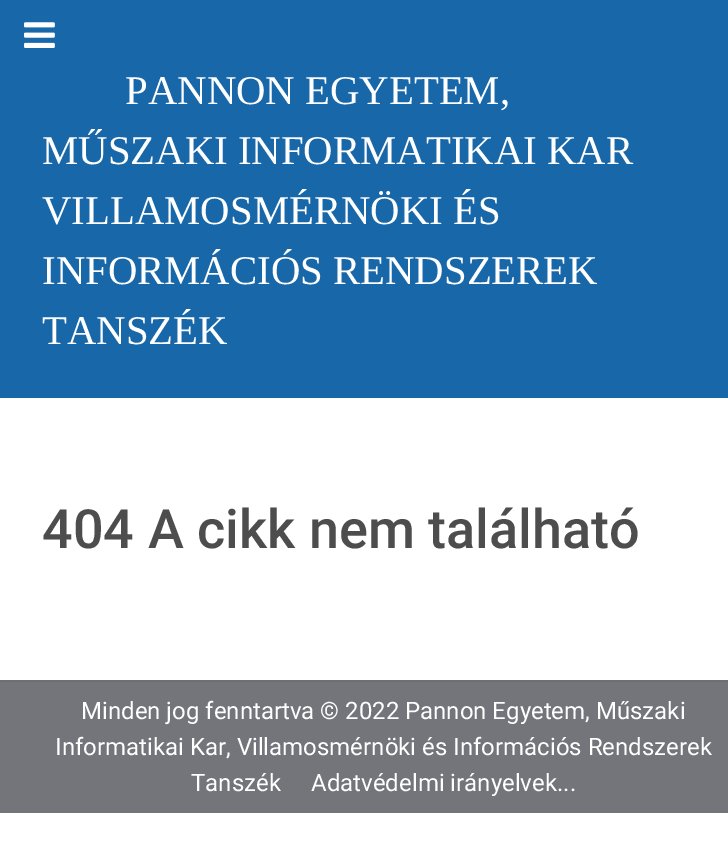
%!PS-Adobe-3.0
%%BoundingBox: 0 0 728 849
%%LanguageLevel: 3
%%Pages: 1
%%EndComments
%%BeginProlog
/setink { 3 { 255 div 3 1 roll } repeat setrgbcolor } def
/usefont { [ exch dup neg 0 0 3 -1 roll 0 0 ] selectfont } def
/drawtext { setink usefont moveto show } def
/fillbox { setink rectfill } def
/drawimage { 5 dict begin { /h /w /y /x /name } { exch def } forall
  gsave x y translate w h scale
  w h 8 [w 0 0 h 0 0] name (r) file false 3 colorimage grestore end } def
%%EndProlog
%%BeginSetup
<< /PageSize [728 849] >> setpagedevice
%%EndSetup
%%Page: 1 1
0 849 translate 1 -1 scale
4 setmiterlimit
0 0 728 849 255 255 255 fillbox
0 0 728 398 24 103 169 fillbox
(assets/img1.rgb) 24 22 31 26 drawimage
(PANNON EGYETEM,) 125 104 /LiberationSerif-Regular 40.75 255 255 255 drawtext
(MŰSZAKI INFORMATIKAI KAR) 42 164 /LiberationSerif-Regular 40.75 255 255 255 drawtext
(VILLAMOSMÉRNÖKI ÉS) 42 224 /LiberationSerif-Regular 40.75 255 255 255 drawtext
(INFORMÁCIÓS RENDSZEREK) 42 284 /LiberationSerif-Regular 40.75 255 255 255 drawtext
(TANSZÉK) 42 344 /LiberationSerif-Regular 40.75 255 255 255 drawtext
(404 A cikk nem található) 42 548 /Roboto-Medium 54 77 77 77 drawtext
0 682 728 131 115 117 122 fillbox
0 680 728 2 109 111 116 fillbox
(Minden jog fenntartva © 2022 Pannon Egyetem, Műszaki) 81 719 /Roboto-Regular 24 255 255 255 drawtext
(Informatikai Kar, Villamosmérnöki és Információs Rendszerek) 55 755 /Roboto-Regular 24 255 255 255 drawtext
(Tanszék) 191 791 /Roboto-Regular 24 255 255 255 drawtext
(Adatvédelmi irányelvek...) 311 791 /Roboto-Regular 24 255 255 255 drawtext
showpage
%%EOF
